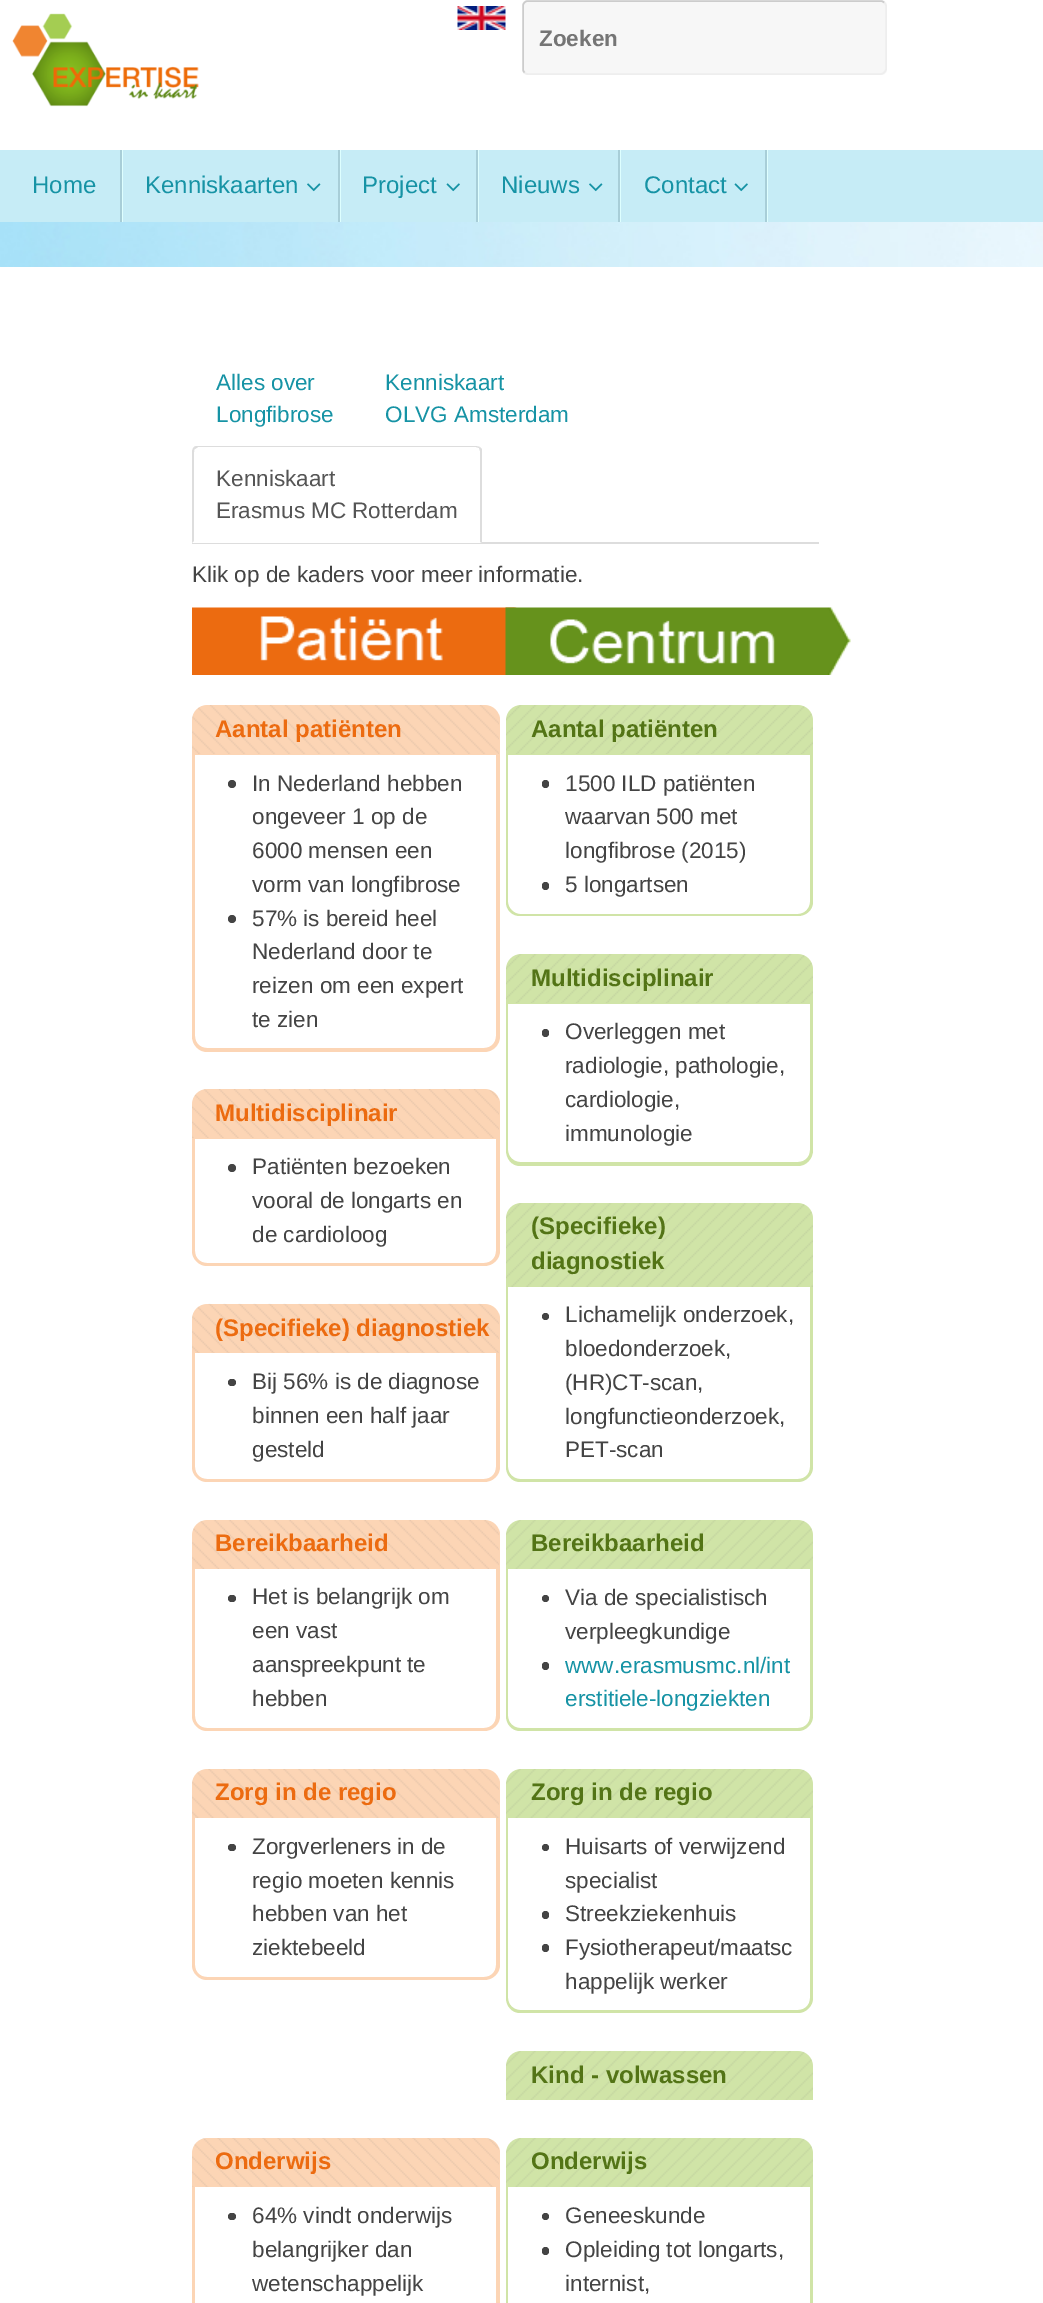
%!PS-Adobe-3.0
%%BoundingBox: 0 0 1043 2303
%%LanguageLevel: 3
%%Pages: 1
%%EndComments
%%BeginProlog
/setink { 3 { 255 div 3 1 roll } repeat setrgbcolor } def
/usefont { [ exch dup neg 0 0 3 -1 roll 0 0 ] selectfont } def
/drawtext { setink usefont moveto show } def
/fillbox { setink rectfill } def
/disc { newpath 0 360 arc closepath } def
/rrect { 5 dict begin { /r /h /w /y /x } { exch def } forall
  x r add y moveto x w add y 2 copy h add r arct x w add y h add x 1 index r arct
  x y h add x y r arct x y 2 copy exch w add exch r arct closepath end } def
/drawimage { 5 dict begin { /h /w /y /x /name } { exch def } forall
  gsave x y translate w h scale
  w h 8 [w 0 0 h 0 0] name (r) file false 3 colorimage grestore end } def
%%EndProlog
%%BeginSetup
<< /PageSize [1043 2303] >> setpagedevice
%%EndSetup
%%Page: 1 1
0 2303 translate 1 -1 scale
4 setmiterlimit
0 0 1043 2303 255 255 255 fillbox
(assets/img1.rgb) 0 222 1043 45 drawimage
(assets/img2.rgb) 12 13 187 94 drawimage
(assets/img3.rgb) 457 6 49 24 drawimage
247 247 247 setink
522 0 365 75 6 rrect fill
238 238 238 setink
1.5 setlinewidth
884 2.5 moveto 885 3.5 886 4.5 886 6 curveto 886 69 lineto 886 70.5 885 71.5 884 72.5 curveto 883 73.5 882 74 880.5 74 curveto 528 74 lineto 526.5 74 525.5 73.5 524.5 72.5 curveto stroke
204 204 204 setink
524.5 72.5 moveto 523.5 71.5 523 70.5 523 69 curveto 523 6 lineto 523 4.5 523.5 3.5 524.5 2.5 curveto 525.5 1.5 526.5 1 528 1 curveto 880.5 1 lineto 882 1 883 1.5 884 2.5 curveto stroke
(Zoeken) 539 46 /LiberationSans-Bold 22.5 117 117 117 drawtext
0 150 1043 72 198 236 246 fillbox
122 150 1 72 222 255 255 fillbox
120 150 2 72 168 206 216 fillbox
(Home) 32 193 /LiberationSans-Regular 24 22 147 165 drawtext
340 150 1 72 222 255 255 fillbox
338 150 2 72 168 206 216 fillbox
(Kenniskaarten) 145 193 /LiberationSans-Regular 24 22 147 165 drawtext
(assets/img4.rgb) 307 183 14 9 drawimage
478 150 1 72 222 255 255 fillbox
476 150 2 72 168 206 216 fillbox
(Project) 362 193 /LiberationSans-Regular 24 22 147 165 drawtext
(assets/img5.rgb) 446 183 14 9 drawimage
620 150 1 72 222 255 255 fillbox
618 150 2 72 168 206 216 fillbox
(Nieuws) 501 193 /LiberationSans-Regular 24 22 147 165 drawtext
(assets/img4.rgb) 589 183 14 9 drawimage
767 150 1 72 222 255 255 fillbox
765 150 2 72 168 206 216 fillbox
(Contact) 644 193 /LiberationSans-Regular 24 22 147 165 drawtext
(assets/img5.rgb) 734 183 14 9 drawimage
192 542 627 2 221 221 221 fillbox
(Alles over) 216 390 /LiberationSans-Regular 22.5 22 147 165 drawtext
(Longfibrose) 216 422 /LiberationSans-Regular 22.5 22 147 165 drawtext
(Kenniskaart) 385 390 /LiberationSans-Regular 22.5 22 147 165 drawtext
(OLVG Amsterdam) 385 422 /LiberationSans-Regular 22.5 22 147 165 drawtext
255 255 255 setink
198 446 moveto 476 446 lineto 479.5 446 482 448.5 482 452 curveto 482 543 lineto 192 543 lineto 192 452 lineto 192 448.5 194.5 446 198 446 curveto closepath fill
221 221 221 setink
198 446 moveto 197 446 195 446 194 447 curveto 195 449 lineto 198 447 lineto 476 447 lineto 479 448 lineto 480 447 lineto 476 446 lineto closepath fill
480 447 moveto 482 449 lineto 482 543 lineto 480 542 lineto 480 451 lineto 479 448 lineto closepath fill
192 543 moveto 194 541 lineto 194 452 lineto 194 451 194 449 195 449 curveto 194 447 lineto 193 448 192 450 192 452 curveto closepath fill
(Kenniskaart) 216 486 /LiberationSans-Regular 22.5 85 85 85 drawtext
(Erasmus MC Rotterdam) 216 518 /LiberationSans-Regular 22.5 85 85 85 drawtext
(Klik op de kaders voor meer informatie.) 192 582 /LiberationSans-Regular 22.5 68 68 68 drawtext
252 213 181 setink
207 705 moveto 485 705 lineto 493.5 705 500 711.5 500 720 curveto 500 755 lineto 192 755 lineto 192 720 lineto 192 711.5 198.5 705 207 705 curveto closepath fill
(assets/img6.rgb) 192 705 307 49 drawimage
(Aantal patiënten) 215 737 /LiberationSans-Bold 24 236 107 16 drawtext
252 213 181 setink
192 754 moveto 500 754 lineto 500 1036 lineto 500 1045 493 1052 484 1052 curveto 207 1052 lineto 199 1052 192 1045 192 1036 curveto closepath 195 754 moveto 496 754 lineto 496 1036 lineto 496 1043 491 1048 484 1048 curveto 207 1048 lineto 200 1048 195 1043 195 1036 curveto closepath eofill
68 68 68 setink
232 784 4 disc fill
(In Nederland hebben) 252 791 /LiberationSans-Regular 22.5 68 68 68 drawtext
(ongeveer 1 op de) 252 824 /LiberationSans-Regular 22.5 68 68 68 drawtext
(6000 mensen een) 252 858 /LiberationSans-Regular 22.5 68 68 68 drawtext
(vorm van longfibrose) 252 892 /LiberationSans-Regular 22.5 68 68 68 drawtext
232 919 4 disc fill
(57% is bereid heel) 252 926 /LiberationSans-Regular 22.5 68 68 68 drawtext
(Nederland door te) 252 959 /LiberationSans-Regular 22.5 68 68 68 drawtext
(reizen om een expert) 252 993 /LiberationSans-Regular 22.5 68 68 68 drawtext
(te zien) 252 1027 /LiberationSans-Regular 22.5 68 68 68 drawtext
252 213 181 setink
207 1089 moveto 485 1089 lineto 493.5 1089 500 1095.5 500 1104 curveto 500 1139 lineto 192 1139 lineto 192 1104 lineto 192 1095.5 198.5 1089 207 1089 curveto closepath fill
(assets/img7.rgb) 192 1089 307 49 drawimage
(Multidisciplinair) 215 1121 /LiberationSans-Bold 24 236 107 16 drawtext
252 213 181 setink
192 1138 moveto 500 1138 lineto 500 1251 lineto 500 1259 493 1266 484 1266 curveto 207 1266 lineto 199 1266 192 1259 192 1251 curveto closepath 195 1138 moveto 496 1138 lineto 496 1251 lineto 496 1258 491 1263 484 1263 curveto 207 1263 lineto 200 1263 195 1258 195 1251 curveto closepath eofill
68 68 68 setink
232 1168 4 disc fill
(Patiënten bezoeken) 252 1174 /LiberationSans-Regular 22.5 68 68 68 drawtext
(vooral de longarts en) 252 1208 /LiberationSans-Regular 22.5 68 68 68 drawtext
(de cardioloog) 252 1242 /LiberationSans-Regular 22.5 68 68 68 drawtext
252 213 181 setink
207 1304 moveto 485 1304 lineto 493.5 1304 500 1310.5 500 1319 curveto 500 1353 lineto 192 1353 lineto 192 1319 lineto 192 1310.5 198.5 1304 207 1304 curveto closepath fill
(assets/img8.rgb) 192 1303 307 50 drawimage
(\(Specifieke\) diagnostiek) 215 1336 /LiberationSans-Bold 24 236 107 16 drawtext
252 213 181 setink
192 1353 moveto 500 1353 lineto 500 1467 lineto 500 1475 493 1482 484 1482 curveto 207 1482 lineto 199 1482 192 1475 192 1467 curveto closepath 195 1353 moveto 496 1353 lineto 496 1467 lineto 496 1474 491 1479 484 1479 curveto 207 1479 lineto 200 1479 195 1474 195 1467 curveto closepath eofill
68 68 68 setink
228 1379 8 7 3.5 rrect fill
(Bij 56% is de diagnose) 252 1389 /LiberationSans-Regular 22.5 68 68 68 drawtext
(binnen een half jaar) 252 1423 /LiberationSans-Regular 22.5 68 68 68 drawtext
(gesteld) 252 1457 /LiberationSans-Regular 22.5 68 68 68 drawtext
252 213 181 setink
207 1520 moveto 485 1520 lineto 493.5 1520 500 1526.5 500 1535 curveto 500 1569 lineto 192 1569 lineto 192 1535 lineto 192 1526.5 198.5 1520 207 1520 curveto closepath fill
(assets/img9.rgb) 192 1520 307 49 drawimage
(Bereikbaarheid) 215 1551 /LiberationSans-Bold 24 236 107 16 drawtext
252 213 181 setink
192 1569 moveto 500 1569 lineto 500 1716 lineto 500 1724 493 1731 484 1731 curveto 207 1731 lineto 199 1731 192 1724 192 1716 curveto closepath 195 1569 moveto 496 1569 lineto 496 1716 lineto 496 1723 491 1728 484 1728 curveto 207 1728 lineto 200 1728 195 1723 195 1716 curveto closepath eofill
68 68 68 setink
228 1595 8 7 3.5 rrect fill
(Het is belangrijk om) 252 1604 /LiberationSans-Regular 22.5 68 68 68 drawtext
(een vast) 252 1638 /LiberationSans-Regular 22.5 68 68 68 drawtext
(aanspreekpunt te) 252 1672 /LiberationSans-Regular 22.5 68 68 68 drawtext
(hebben) 252 1706 /LiberationSans-Regular 22.5 68 68 68 drawtext
208 228 167 setink
521 705 moveto 798 705 lineto 806.5 705 813 711.5 813 720 curveto 813 755 lineto 506 755 lineto 506 720 lineto 506 711.5 512.5 705 521 705 curveto closepath fill
(assets/img10.rgb) 506 705 307 49 drawimage
(Aantal patiënten) 531 737 /LiberationSans-Bold 24 83 116 22 drawtext
208 228 167 setink
506 754 moveto 813 754 lineto 813 902 lineto 813 910 806 916 798 916 curveto 520 916 lineto 512 916 506 910 506 902 curveto closepath 508 754 moveto 810 754 lineto 810 902 lineto 810 908 805 914 798 914 curveto 520 914 lineto 514 914 508 908 508 902 curveto closepath eofill
68 68 68 setink
542 780 7 8 3.5 rrect fill
(1500 ILD patiënten) 565 791 /LiberationSans-Regular 22.5 68 68 68 drawtext
(waarvan 500 met) 565 824 /LiberationSans-Regular 22.5 68 68 68 drawtext
(longfibrose \(2015\)) 565 858 /LiberationSans-Regular 22.5 68 68 68 drawtext
542 882 7 8 3.5 rrect fill
(5 longartsen) 565 892 /LiberationSans-Regular 22.5 68 68 68 drawtext
208 228 167 setink
521 954 moveto 798 954 lineto 806.5 954 813 960.5 813 969 curveto 813 1004 lineto 506 1004 lineto 506 969 lineto 506 960.5 512.5 954 521 954 curveto closepath fill
(assets/img10.rgb) 506 954 307 49 drawimage
(Multidisciplinair) 531 986 /LiberationSans-Bold 24 83 116 22 drawtext
208 228 167 setink
506 1004 moveto 813 1004 lineto 813 1150 lineto 813 1159 806 1166 798 1166 curveto 520 1166 lineto 512 1166 506 1159 506 1150 curveto closepath 508 1004 moveto 810 1004 lineto 810 1150 lineto 810 1157 805 1162 798 1162 curveto 520 1162 lineto 514 1162 508 1157 508 1150 curveto closepath eofill
68 68 68 setink
542 1029 7 8 3.5 rrect fill
(Overleggen met) 565 1039 /LiberationSans-Regular 22.5 68 68 68 drawtext
(radiologie, pathologie,) 565 1073 /LiberationSans-Regular 22.5 68 68 68 drawtext
(cardiologie,) 565 1107 /LiberationSans-Regular 22.5 68 68 68 drawtext
(immunologie) 565 1141 /LiberationSans-Regular 22.5 68 68 68 drawtext
208 228 167 setink
521 1203 moveto 798 1203 lineto 806.5 1203 813 1209.5 813 1218 curveto 813 1287 lineto 506 1287 lineto 506 1218 lineto 506 1209.5 512.5 1203 521 1203 curveto closepath fill
(assets/img11.rgb) 506 1203 307 84 drawimage
(\(Specifieke\)) 531 1234 /LiberationSans-Bold 24 83 116 22 drawtext
(diagnostiek) 531 1269 /LiberationSans-Bold 24 83 116 22 drawtext
208 228 167 setink
506 1287 moveto 813 1287 lineto 813 1467 lineto 813 1475 806 1482 798 1482 curveto 520 1482 lineto 512 1482 506 1475 506 1467 curveto closepath 508 1287 moveto 810 1287 lineto 810 1467 lineto 810 1474 805 1479 798 1479 curveto 520 1479 lineto 514 1479 508 1474 508 1467 curveto closepath eofill
68 68 68 setink
545.5 1316.5 3.5 disc fill
(Lichamelijk onderzoek,) 565 1322 /LiberationSans-Regular 22.5 68 68 68 drawtext
(bloedonderzoek,) 565 1356 /LiberationSans-Regular 22.5 68 68 68 drawtext
(\(HR\)CT-scan,) 565 1390 /LiberationSans-Regular 22.5 68 68 68 drawtext
(longfunctieonderzoek,) 565 1424 /LiberationSans-Regular 22.5 68 68 68 drawtext
(PET-scan) 565 1457 /LiberationSans-Regular 22.5 68 68 68 drawtext
208 228 167 setink
521 1520 moveto 798 1520 lineto 806.5 1520 813 1526.5 813 1535 curveto 813 1569 lineto 506 1569 lineto 506 1535 lineto 506 1526.5 512.5 1520 521 1520 curveto closepath fill
(assets/img12.rgb) 506 1520 307 49 drawimage
(Bereikbaarheid) 531 1551 /LiberationSans-Bold 24 83 116 22 drawtext
208 228 167 setink
506 1569 moveto 813 1569 lineto 813 1716 lineto 813 1724 806 1731 798 1731 curveto 520 1731 lineto 512 1731 506 1724 506 1716 curveto closepath 508 1569 moveto 810 1569 lineto 810 1716 lineto 810 1723 805 1728 798 1728 curveto 520 1728 lineto 514 1728 508 1723 508 1716 curveto closepath eofill
68 68 68 setink
545.5 1598.5 3.5 disc fill
(Via de specialistisch) 565 1605 /LiberationSans-Regular 22.5 68 68 68 drawtext
(verpleegkundige) 565 1639 /LiberationSans-Regular 22.5 68 68 68 drawtext
542 1662 7 8 3.5 rrect fill
(www.erasmusmc.nl/int) 565 1673 /LiberationSans-Regular 22.5 22 147 165 drawtext
(erstitiele-longziekten) 565 1706 /LiberationSans-Regular 22.5 22 147 165 drawtext
(assets/img13.rgb) 192 607 326 68 drawimage
252 213 181 setink
207 1769 moveto 485 1769 lineto 493.5 1769 500 1775.5 500 1784 curveto 500 1818 lineto 192 1818 lineto 192 1784 lineto 192 1775.5 198.5 1769 207 1769 curveto closepath fill
(assets/img14.rgb) 192 1769 307 49 drawimage
(Zorg in de regio) 215 1800 /LiberationSans-Bold 24 236 107 16 drawtext
252 213 181 setink
192 1818 moveto 500 1818 lineto 500 1965 lineto 500 1973 493 1980 484 1980 curveto 207 1980 lineto 199 1980 192 1973 192 1965 curveto closepath 195 1818 moveto 496 1818 lineto 496 1965 lineto 496 1972 491 1977 484 1977 curveto 207 1977 lineto 200 1977 195 1972 195 1965 curveto closepath eofill
68 68 68 setink
228 1844 8 7 3.5 rrect fill
(Zorgverleners in de) 252 1854 /LiberationSans-Regular 22.5 68 68 68 drawtext
(regio moeten kennis) 252 1888 /LiberationSans-Regular 22.5 68 68 68 drawtext
(hebben van het) 252 1921 /LiberationSans-Regular 22.5 68 68 68 drawtext
(ziektebeeld) 252 1955 /LiberationSans-Regular 22.5 68 68 68 drawtext
(assets/img15.rgb) 505 607 346 68 drawimage
208 228 167 setink
521 1769 moveto 798 1769 lineto 806.5 1769 813 1775.5 813 1784 curveto 813 1818 lineto 506 1818 lineto 506 1784 lineto 506 1775.5 512.5 1769 521 1769 curveto closepath fill
(assets/img16.rgb) 506 1769 307 49 drawimage
(Zorg in de regio) 531 1800 /LiberationSans-Bold 24 83 116 22 drawtext
208 228 167 setink
506 1818 moveto 813 1818 lineto 813 1998 lineto 813 2006 806 2013 798 2013 curveto 520 2013 lineto 512 2013 506 2006 506 1998 curveto closepath 508 1818 moveto 810 1818 lineto 810 1998 lineto 810 2005 805 2010 798 2010 curveto 520 2010 lineto 514 2010 508 2005 508 1998 curveto closepath eofill
68 68 68 setink
545.5 1847.5 3.5 disc fill
(Huisarts of verwijzend) 565 1854 /LiberationSans-Regular 22.5 68 68 68 drawtext
(specialist) 565 1888 /LiberationSans-Regular 22.5 68 68 68 drawtext
542 1911 7 8 3.5 rrect fill
(Streekziekenhuis) 565 1921 /LiberationSans-Regular 22.5 68 68 68 drawtext
542 1944 7 8 3.5 rrect fill
(Fysiotherapeut/maatsc) 565 1955 /LiberationSans-Regular 22.5 68 68 68 drawtext
(happelijk werker) 565 1989 /LiberationSans-Regular 22.5 68 68 68 drawtext
208 228 167 setink
521 2051 moveto 798 2051 lineto 806.5 2051 813 2057.5 813 2066 curveto 813 2100 lineto 506 2100 lineto 506 2066 lineto 506 2057.5 512.5 2051 521 2051 curveto closepath fill
(assets/img17.rgb) 506 2051 307 49 drawimage
(Kind - volwassen) 531 2083 /LiberationSans-Bold 24 83 116 22 drawtext
252 213 181 setink
207 2138 moveto 485 2138 lineto 493.5 2138 500 2144.5 500 2153 curveto 500 2187 lineto 192 2187 lineto 192 2153 lineto 192 2144.5 198.5 2138 207 2138 curveto closepath fill
(assets/img18.rgb) 192 2138 307 49 drawimage
(Onderwijs) 215 2169 /LiberationSans-Bold 24 236 107 16 drawtext
252 213 181 setink
192 2187 moveto 500 2187 lineto 500 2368 lineto 500 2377 493 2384 484 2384 curveto 207 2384 lineto 199 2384 192 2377 192 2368 curveto closepath 195 2187 moveto 496 2187 lineto 496 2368 lineto 496 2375 491 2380 484 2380 curveto 207 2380 lineto 200 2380 195 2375 195 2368 curveto closepath eofill
68 68 68 setink
228 2213 8 7 3.5 rrect fill
(64% vindt onderwijs) 252 2223 /LiberationSans-Regular 22.5 68 68 68 drawtext
(belangrijker dan) 252 2257 /LiberationSans-Regular 22.5 68 68 68 drawtext
(wetenschappelijk) 252 2291 /LiberationSans-Regular 22.5 68 68 68 drawtext
208 228 167 setink
521 2138 moveto 798 2138 lineto 806.5 2138 813 2144.5 813 2153 curveto 813 2187 lineto 506 2187 lineto 506 2153 lineto 506 2144.5 512.5 2138 521 2138 curveto closepath fill
(assets/img19.rgb) 506 2138 307 49 drawimage
(Onderwijs) 531 2169 /LiberationSans-Bold 24 83 116 22 drawtext
208 228 167 setink
506 2187 moveto 813 2187 lineto 813 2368 lineto 813 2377 806 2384 798 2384 curveto 520 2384 lineto 512 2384 506 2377 506 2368 curveto closepath 508 2187 moveto 810 2187 lineto 810 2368 lineto 810 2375 805 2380 798 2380 curveto 520 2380 lineto 514 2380 508 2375 508 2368 curveto closepath eofill
68 68 68 setink
545.5 2216.5 3.5 disc fill
(Geneeskunde) 565 2223 /LiberationSans-Regular 22.5 68 68 68 drawtext
542 2247 7 8 3.5 rrect fill
(Opleiding tot longarts,) 565 2257 /LiberationSans-Regular 22.5 68 68 68 drawtext
(internist,) 565 2291 /LiberationSans-Regular 22.5 68 68 68 drawtext
showpage
%%EOF
